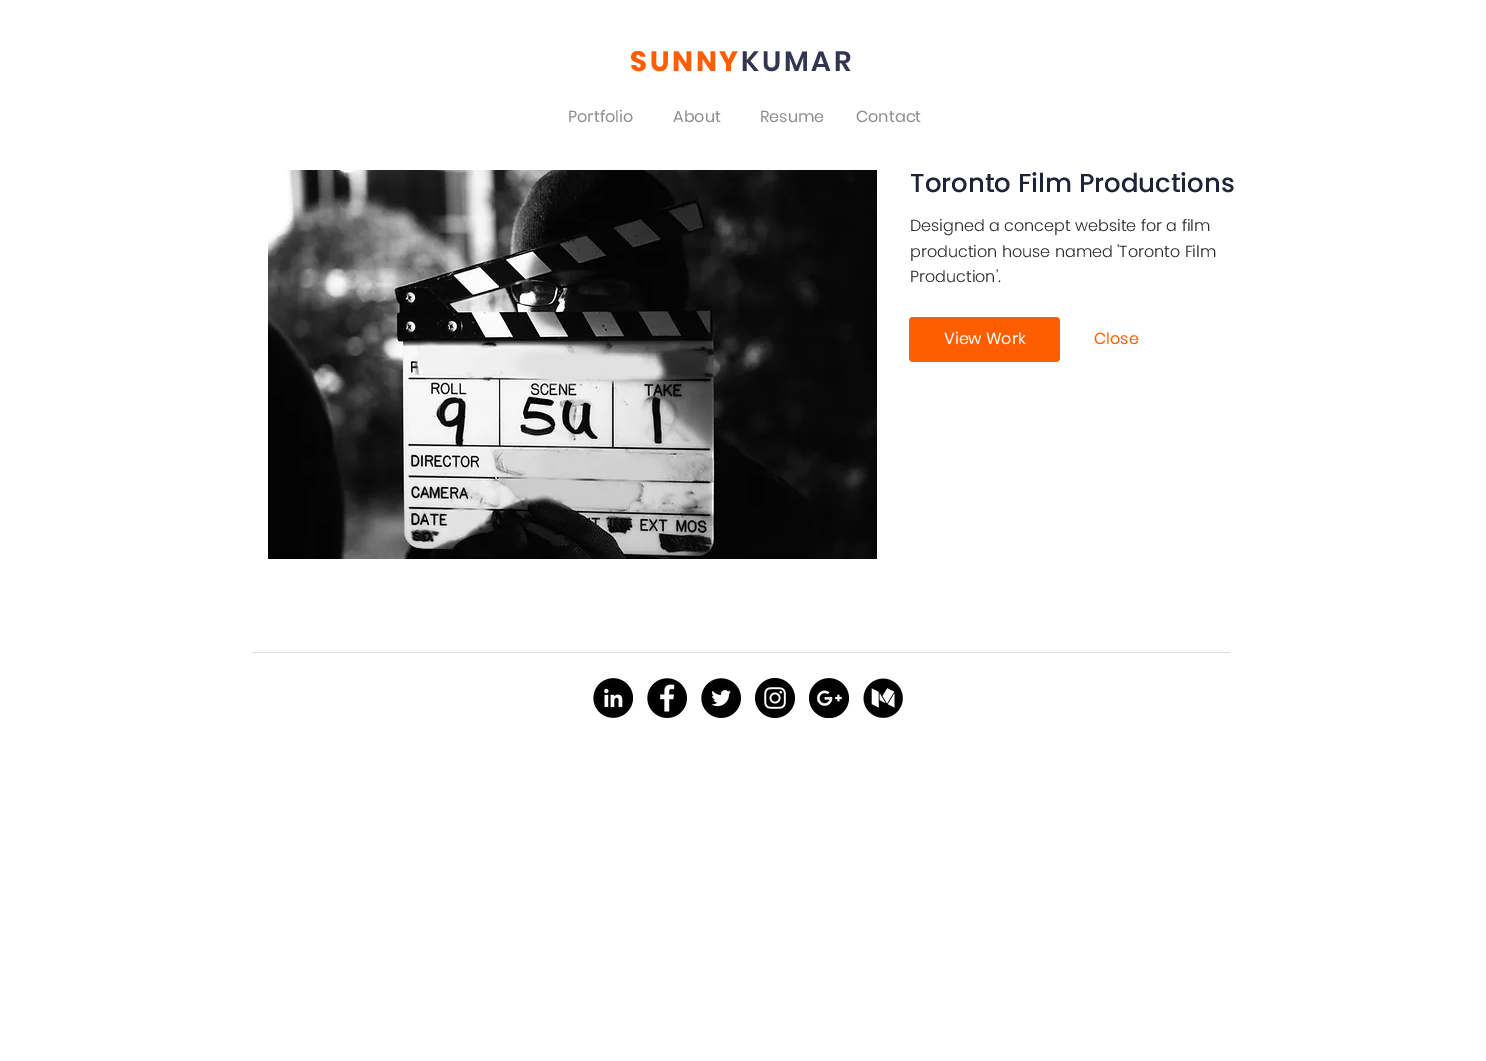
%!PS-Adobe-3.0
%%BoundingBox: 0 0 1486 1061
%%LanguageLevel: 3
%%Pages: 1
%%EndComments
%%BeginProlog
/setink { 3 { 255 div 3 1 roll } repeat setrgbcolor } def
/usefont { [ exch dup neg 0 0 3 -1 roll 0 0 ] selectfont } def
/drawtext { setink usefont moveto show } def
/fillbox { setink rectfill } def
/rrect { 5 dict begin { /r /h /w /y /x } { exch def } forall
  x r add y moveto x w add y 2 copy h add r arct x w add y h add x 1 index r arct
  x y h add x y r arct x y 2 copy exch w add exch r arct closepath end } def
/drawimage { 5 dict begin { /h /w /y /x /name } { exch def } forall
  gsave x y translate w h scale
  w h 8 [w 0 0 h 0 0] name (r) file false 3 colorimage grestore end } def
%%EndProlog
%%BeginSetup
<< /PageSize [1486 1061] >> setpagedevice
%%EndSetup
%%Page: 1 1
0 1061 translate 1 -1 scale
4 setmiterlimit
0 0 1486 1061 255 255 255 fillbox
/Poppins-Bold 28 usefont
255 94 0 setink
630 71 moveto 2.75 0 (SUNNY) ashow
/Poppins-SemiBold 28 usefont
49 53 80 setink
741 71 moveto 2.75 0 (KUMAR) ashow
(Portfolio) 568 122 /Poppins-Regular 16 142 142 142 drawtext
(About) 673 122 /Poppins-Regular 16 142 142 142 drawtext
(Resume) 760 122 /Poppins-Regular 16 142 142 142 drawtext
(Contact) 856 122 /Poppins-Regular 16 142 142 142 drawtext
(assets/img1.rgb) 268 170 609 389 drawimage
(Toronto Film Productions) 910 192 /Poppins-Medium 26 32 35 54 drawtext
(Designed a concept website for a film) 910 231 /Poppins-Light 16 42 42 42 drawtext
(production house named 'Toronto Film) 910 257 /Poppins-Light 16 42 42 42 drawtext
(Production'.) 910 282 /Poppins-Light 16 42 42 42 drawtext
255 94 0 setink
909 317 151 45 4 rrect fill
(View Work) 944 344 /Poppins-Regular 16 255 255 255 drawtext
(Close) 1094 344 /Poppins-Regular 16 255 94 0 drawtext
252 652 978 1 221 221 221 fillbox
(assets/img2.rgb) 593 678 40 40 drawimage
(assets/img3.rgb) 647 678 40 40 drawimage
(assets/img4.rgb) 701 678 40 40 drawimage
(assets/img5.rgb) 755 678 40 40 drawimage
(assets/img6.rgb) 809 678 40 40 drawimage
(assets/img7.rgb) 863 678 40 40 drawimage
showpage
%%EOF
